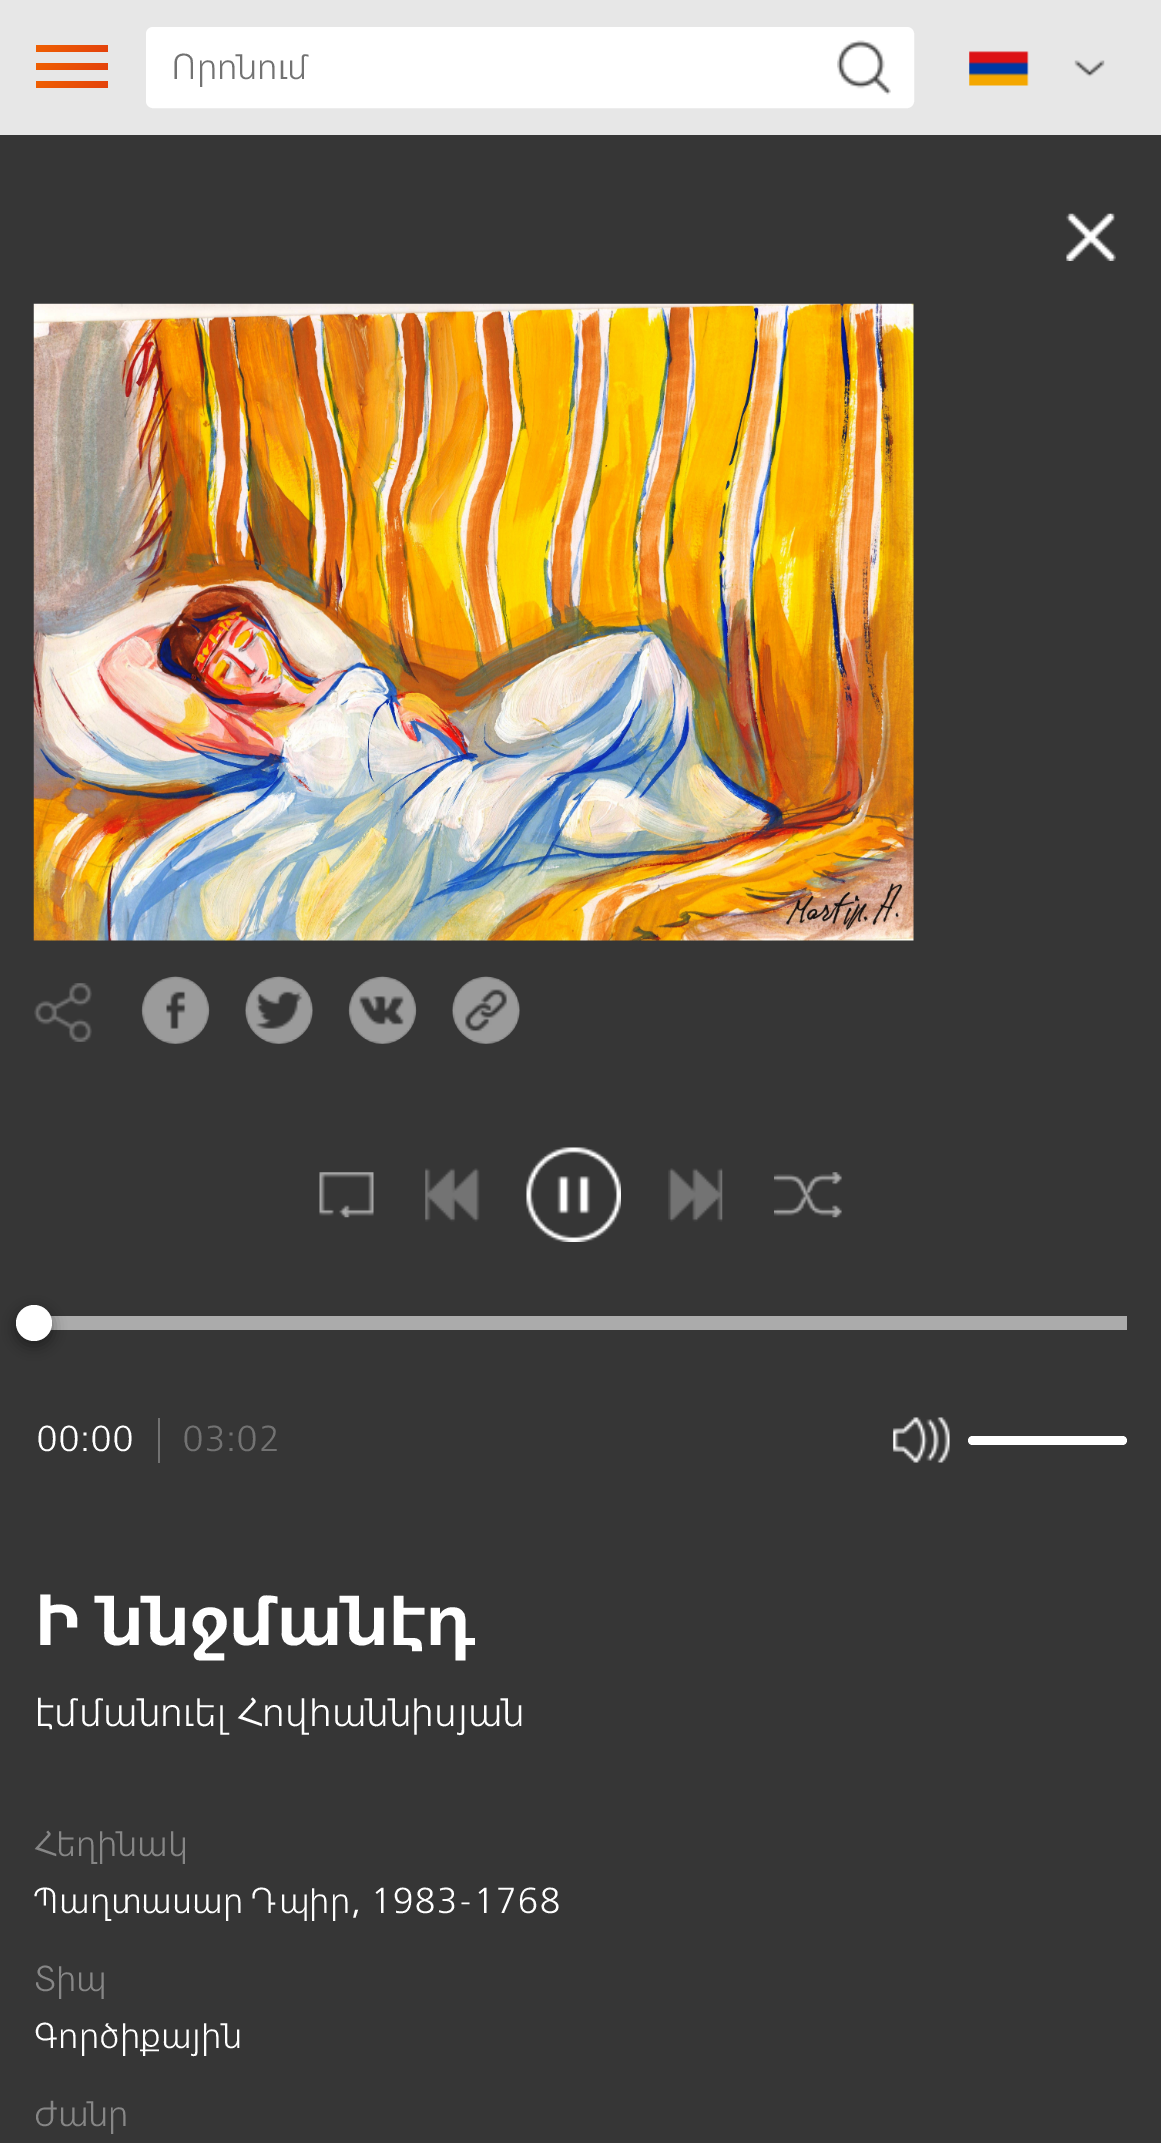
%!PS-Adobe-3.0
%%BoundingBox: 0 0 1161 2143
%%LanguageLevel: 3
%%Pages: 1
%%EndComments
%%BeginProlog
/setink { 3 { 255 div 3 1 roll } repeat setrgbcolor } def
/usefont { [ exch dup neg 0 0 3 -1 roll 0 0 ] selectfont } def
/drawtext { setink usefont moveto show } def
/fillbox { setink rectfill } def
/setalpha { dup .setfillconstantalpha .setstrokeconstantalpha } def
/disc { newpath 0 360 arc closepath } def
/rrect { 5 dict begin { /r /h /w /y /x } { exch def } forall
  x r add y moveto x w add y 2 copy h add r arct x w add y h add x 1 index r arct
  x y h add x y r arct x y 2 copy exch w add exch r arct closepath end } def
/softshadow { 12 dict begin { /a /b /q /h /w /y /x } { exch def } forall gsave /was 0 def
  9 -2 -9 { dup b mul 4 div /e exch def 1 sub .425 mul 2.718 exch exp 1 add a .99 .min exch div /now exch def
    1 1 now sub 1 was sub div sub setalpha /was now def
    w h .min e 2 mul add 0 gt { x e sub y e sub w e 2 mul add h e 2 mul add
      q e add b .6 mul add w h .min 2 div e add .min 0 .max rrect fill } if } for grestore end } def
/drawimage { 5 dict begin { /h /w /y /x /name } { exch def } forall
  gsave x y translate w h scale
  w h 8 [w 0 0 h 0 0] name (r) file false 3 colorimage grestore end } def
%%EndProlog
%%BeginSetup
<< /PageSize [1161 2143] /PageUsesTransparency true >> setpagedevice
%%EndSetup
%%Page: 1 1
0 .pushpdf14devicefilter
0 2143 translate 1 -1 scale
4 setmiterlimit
0 0 1161 2143 54 54 54 fillbox
0 0 1161 135 231 231 231 fillbox
gsave 36 45 72 7 2 rrect clip newpath
<< /ShadingType 2 /ColorSpace /DeviceRGB /Coords [92 68 52 29] /Extend [true true] /Function << /FunctionType 2 /Domain [0 1] /C0 [0.894 0.259 0.047] /C1 [0.937 0.376 0.008] /N 1 >> >> shfill grestore
gsave 36 63 72 7 2 rrect clip newpath
<< /ShadingType 2 /ColorSpace /DeviceRGB /Coords [92 86 52 47] /Extend [true true] /Function << /FunctionType 2 /Domain [0 1] /C0 [0.894 0.259 0.047] /C1 [0.937 0.376 0.008] /N 1 >> >> shfill grestore
gsave 36 81 72 7 2 rrect clip newpath
<< /ShadingType 2 /ColorSpace /DeviceRGB /Coords [92 104 52 65] /Extend [true true] /Function << /FunctionType 2 /Domain [0 1] /C0 [0.894 0.259 0.047] /C1 [0.937 0.376 0.008] /N 1 >> >> shfill grestore
255 255 255 setink
147 28 766 79 6 rrect gsave fill grestore
2 setlinewidth
stroke
(Որոնում) 171 79 /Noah-Regular 36 114 114 114 drawtext
(assets/img1.rgb) 837 40 54 55 drawimage
(assets/img2.rgb) 969 51 60 35 drawimage
(assets/img3.rgb) 1074 60 31 17 drawimage
(assets/img4.rgb) 1066 213 50 48 drawimage
50 1316 1077 14 171 171 171 fillbox
0 0 0 setink
16 1310 36 36 18 7 0.4 softshadow
255 255 255 setink
34 1323 18 disc fill
(assets/img5.rgb) 319 1172 55 46 drawimage
(assets/img6.rgb) 425 1168 55 54 drawimage
(assets/img7.rgb) 526 1147 95 95 drawimage
(assets/img8.rgb) 668 1168 55 54 drawimage
(assets/img9.rgb) 774 1172 68 46 drawimage
(00:00) 36 1451 /Noah-Regular 36 255 255 255 drawtext
158 1418 2 45 114 114 114 fillbox
(03:02) 182 1451 /Noah-Regular 36 114 114 114 drawtext
(assets/img10.rgb) 893 1417 57 46 drawimage
255 255 255 setink
968 1436 159 9 4.5 rrect fill
(assets/img11.rgb) 33 303 881 638 drawimage
(assets/img12.rgb) 34 983 58 59 drawimage
(assets/img13.rgb) 141 976 69 68 drawimage
(assets/img14.rgb) 245 976 68 68 drawimage
(assets/img15.rgb) 348 976 69 68 drawimage
(assets/img16.rgb) 452 976 68 68 drawimage
(Ի ննջմանէդ) 34 1645 /Noah-SemiBold 72 255 255 255 drawtext
(Էմմանուել Հովհաննիսյան) 34 1726 /Noah-Regular 40.5 255 255 255 drawtext
(Հեղինակ) 34 1856 /Noah-Regular 36 134 134 134 drawtext
(Պաղտասար Դպիր, 1983-1768) 34 1913 /Noah-Regular 36 255 255 255 drawtext
(Տիպ) 34 1991 /Noah-Regular 36 134 134 134 drawtext
(Գործիքային) 34 2048 /Noah-Regular 36 255 255 255 drawtext
(Ժանր) 34 2126 /Noah-Regular 36 134 134 134 drawtext
.poppdf14devicefilter showpage
%%EOF
